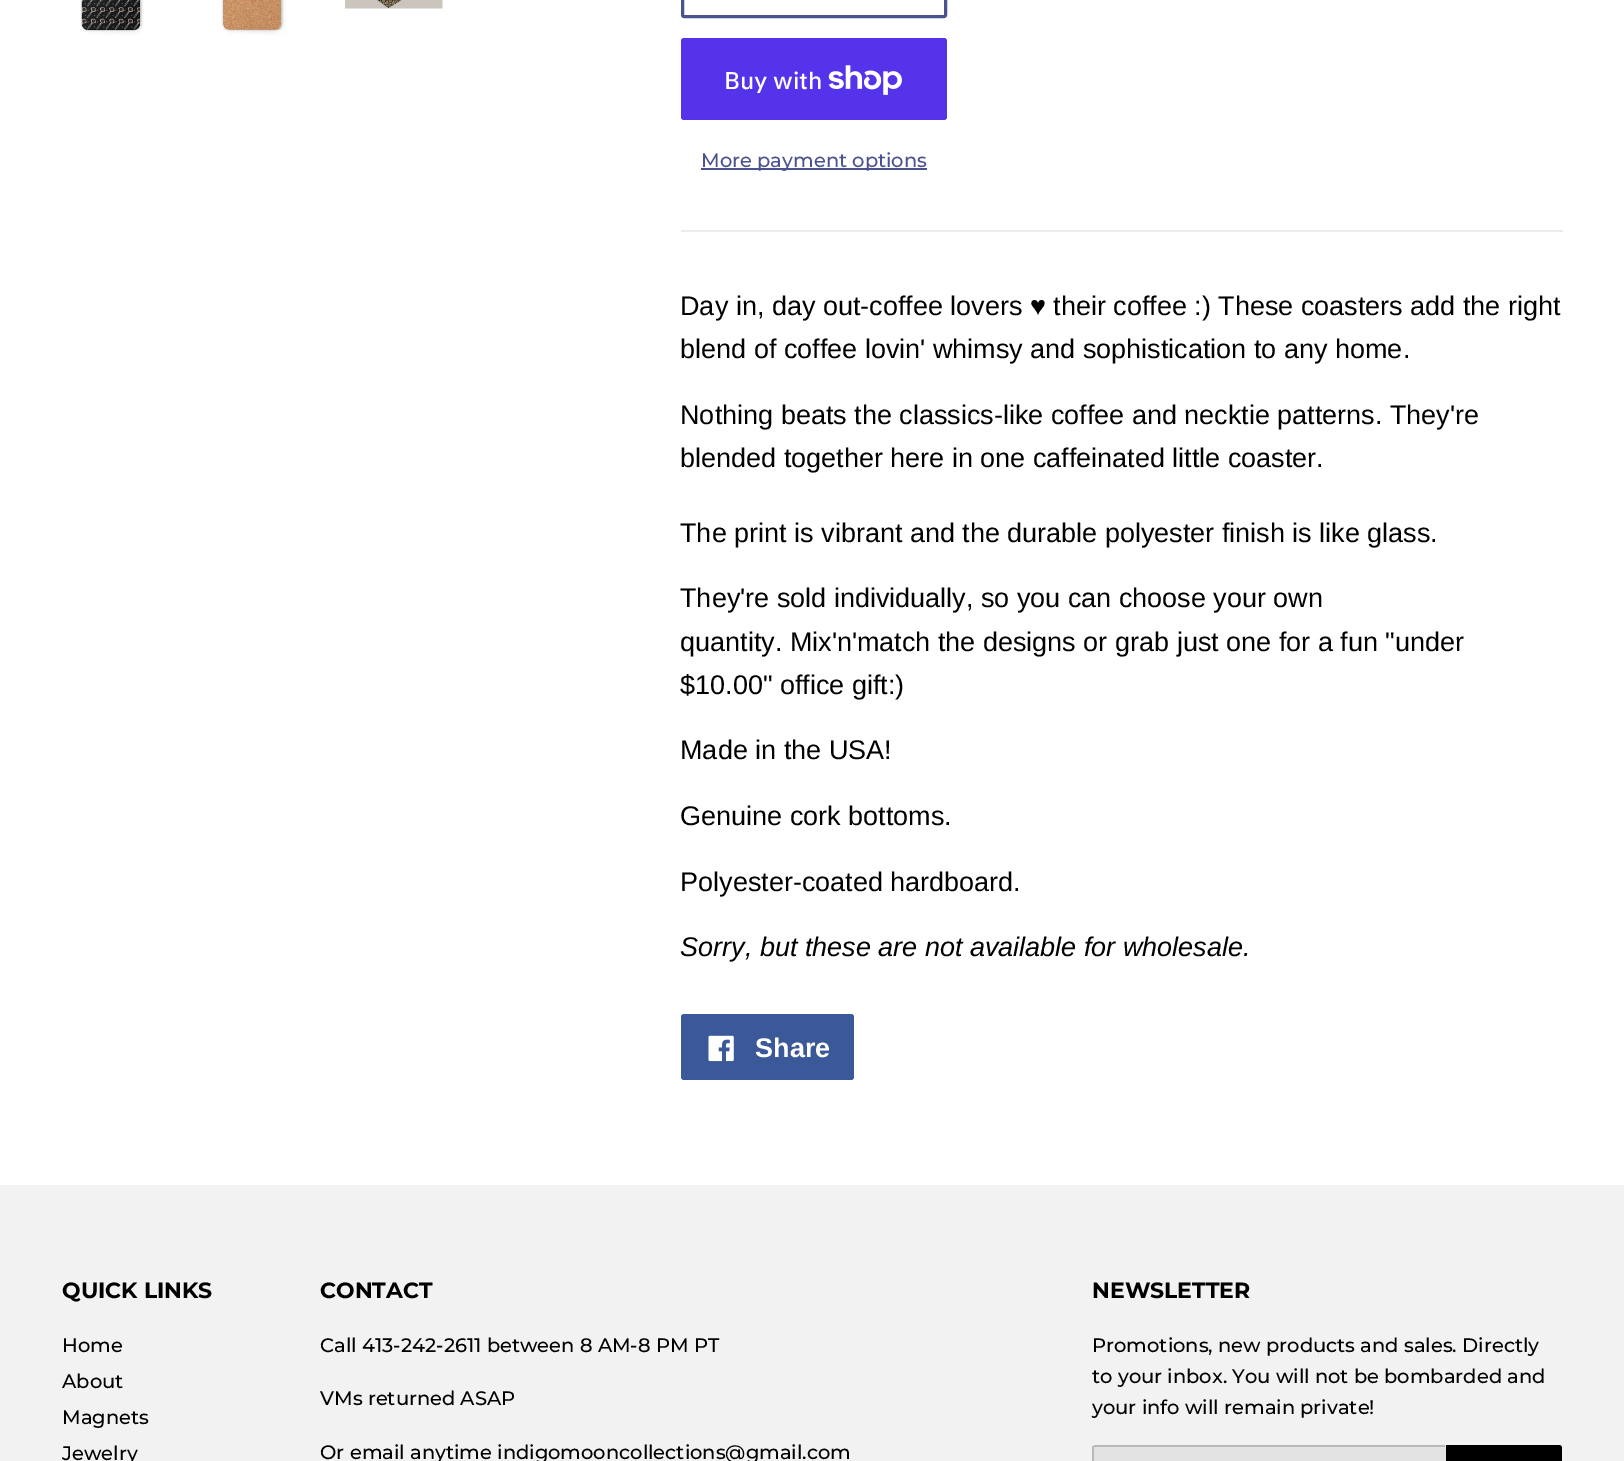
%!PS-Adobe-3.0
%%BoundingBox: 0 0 1624 1461
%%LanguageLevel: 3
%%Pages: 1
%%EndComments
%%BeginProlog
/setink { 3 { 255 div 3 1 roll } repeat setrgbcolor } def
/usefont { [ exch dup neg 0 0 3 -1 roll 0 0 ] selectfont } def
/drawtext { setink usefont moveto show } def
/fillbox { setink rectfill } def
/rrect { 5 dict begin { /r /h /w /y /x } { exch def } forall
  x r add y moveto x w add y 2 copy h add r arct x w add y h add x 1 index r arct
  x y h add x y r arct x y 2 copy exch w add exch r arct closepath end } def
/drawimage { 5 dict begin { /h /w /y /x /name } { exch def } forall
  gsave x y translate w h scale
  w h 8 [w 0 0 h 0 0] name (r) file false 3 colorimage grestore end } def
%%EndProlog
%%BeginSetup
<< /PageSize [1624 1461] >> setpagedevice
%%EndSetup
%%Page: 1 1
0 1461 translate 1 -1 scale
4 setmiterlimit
0 0 1624 1461 255 255 255 fillbox
(assets/img1.rgb) 80 0 64 35 drawimage
(assets/img2.rgb) 221 0 65 35 drawimage
(assets/img3.rgb) 345 0 98 9 drawimage
74 82 143 setink
3 setlinewidth
682.5 -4.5 263 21 1.5 rrect stroke
84 51 235 setink
681 38 266 82 3 rrect fill
(Buy with) 724 89 /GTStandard-Medium 24 255 255 255 drawtext
(assets/img4.rgb) 828 65 74 30 drawimage
701 168 226 2 74 82 143 fillbox
(More payment options) 701 167 /Montserrat-Medium 19.5 74 82 143 drawtext
681 230 882 2 236 236 236 fillbox
(Day in, day out-coffee lovers ♥ their coffee :\) These coasters add the right) 680 315 /LiberationSans-Regular 27 0 0 0 drawtext
(blend of coffee lovin' whimsy and sophistication to any home.) 680 358 /LiberationSans-Regular 27 0 0 0 drawtext
(Nothing beats the classics-like coffee and necktie patterns. They're) 680 424 /LiberationSans-Regular 27 0 0 0 drawtext
(blended together here in one caffeinated little coaster.) 680 467 /LiberationSans-Regular 27 0 0 0 drawtext
(The print is vibrant and the durable polyester finish is like glass.) 680 542 /LiberationSans-Regular 27 0 0 0 drawtext
(They're sold individually, so you can choose your own) 680 607 /LiberationSans-Regular 27 0 0 0 drawtext
(quantity. Mix'n'match the designs or grab just one for a fun "under) 680 651 /LiberationSans-Regular 27 0 0 0 drawtext
($10.00" office gift:\)) 680 694 /LiberationSans-Regular 27 0 0 0 drawtext
(Made in the USA!) 680 759 /LiberationSans-Regular 27 0 0 0 drawtext
(Genuine cork bottoms.) 680 825 /LiberationSans-Regular 27 0 0 0 drawtext
(Polyester-coated hardboard.) 680 891 /LiberationSans-Regular 27 0 0 0 drawtext
(Sorry, but these are not available for wholesale.) 680 956 /LiberationSans-Italic 27 0 0 0 drawtext
59 89 152 setink
681 1014 173 66 3 rrect fill
(assets/img5.rgb) 708 1035 26 27 drawimage
(Share) 755 1057 /LiberationSans-Bold 27 255 255 255 drawtext
0 1185 1624 276 242 242 242 fillbox
(QUICK LINKS) 62 1298 /Montserrat-Bold 22 0 0 0 drawtext
(Home) 62 1352 /Montserrat-Medium 19.5 0 0 0 drawtext
(About) 62 1388 /Montserrat-Medium 19.5 0 0 0 drawtext
(Magnets) 62 1424 /Montserrat-Medium 19.5 0 0 0 drawtext
(Jewelry) 62 1460 /Montserrat-Medium 19.5 0 0 0 drawtext
(CONTACT) 320 1298 /Montserrat-Bold 22 0 0 0 drawtext
(Call 413-242-2611 between 8 AM-8 PM PT) 320 1352 /Montserrat-Medium 19.5 0 0 0 drawtext
(VMs returned ASAP) 320 1405 /Montserrat-Medium 19.5 0 0 0 drawtext
(Or email anytime indigomooncollections@gmail.com) 320 1459 /Montserrat-Medium 19.5 0 0 0 drawtext
(NEWSLETTER) 1092 1298 /Montserrat-Bold 22 0 0 0 drawtext
(Promotions, new products and sales. Directly) 1092 1352 /Montserrat-Medium 19.5 0 0 0 drawtext
(to your inbox. You will not be bombarded and) 1092 1383 /Montserrat-Medium 19.5 0 0 0 drawtext
(your info will remain private!) 1092 1414 /Montserrat-Medium 19.5 0 0 0 drawtext
227 227 227 setink
1092 1445 354 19 3 rrect fill
1094 1445 351 2 185 185 185 fillbox
1092 1446 2 15 185 185 185 fillbox
0 0 0 setink
1446 1445 moveto 1559 1445 lineto 1560.5 1445 1562 1446.5 1562 1448 curveto 1562 1461 lineto 1562 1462.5 1560.5 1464 1559 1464 curveto 1446 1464 lineto closepath fill
showpage
%%EOF
